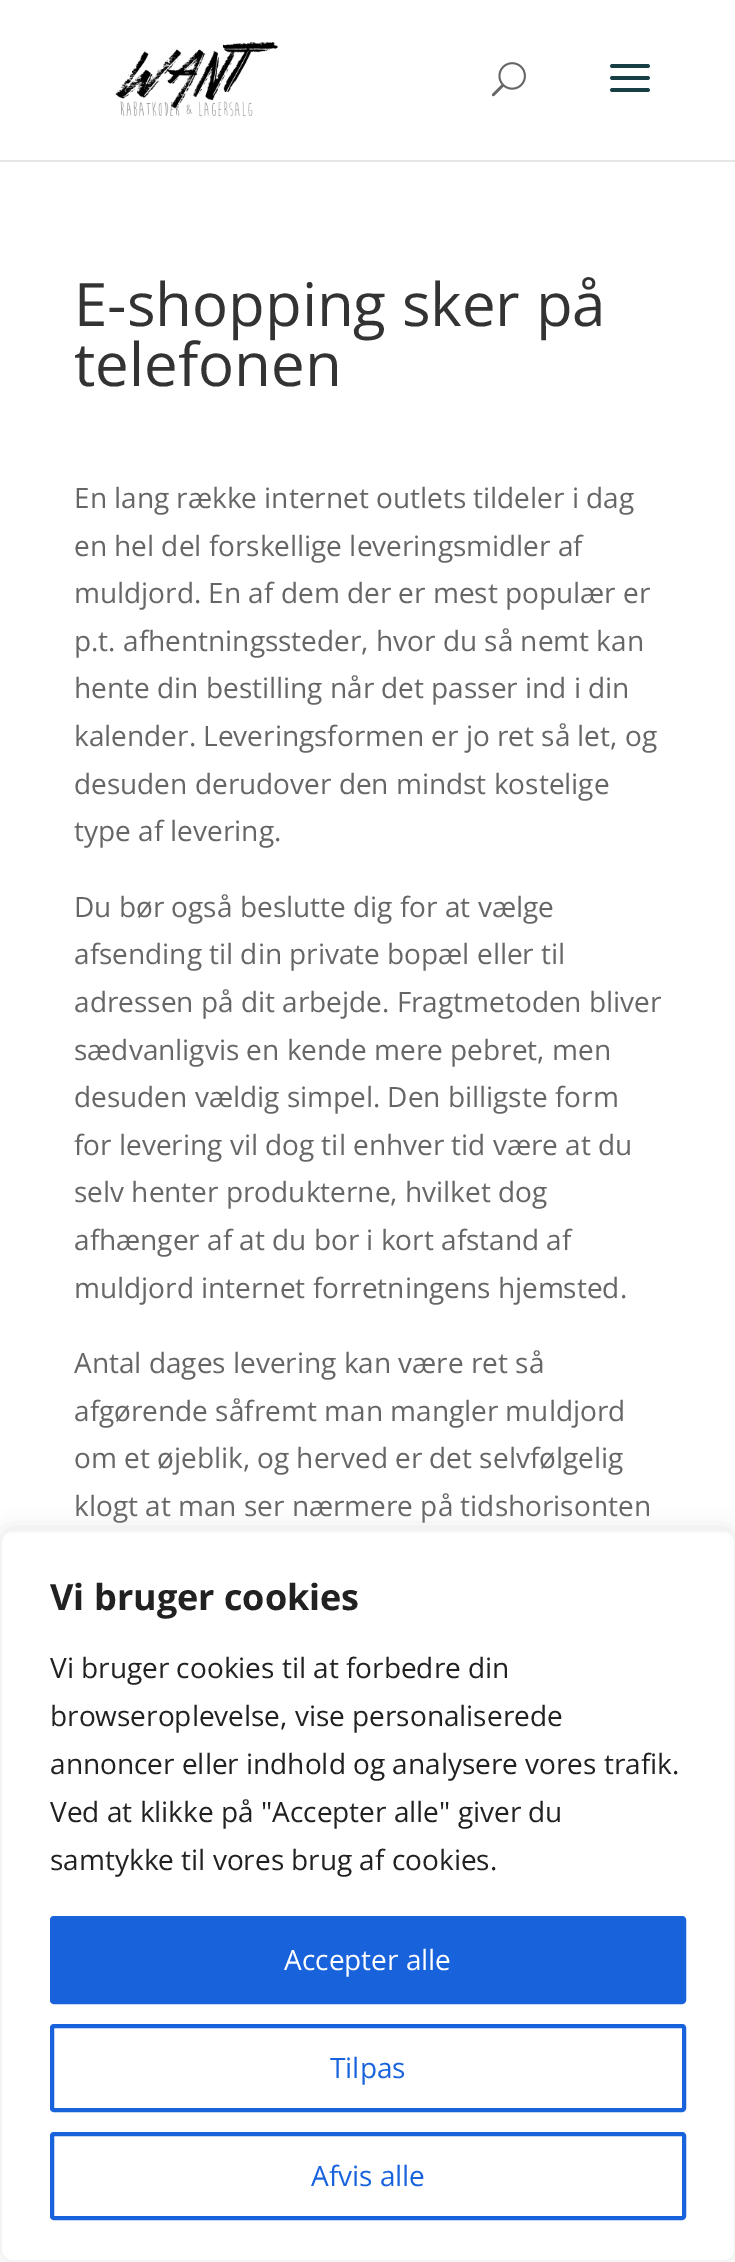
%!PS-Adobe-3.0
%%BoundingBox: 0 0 735 2262
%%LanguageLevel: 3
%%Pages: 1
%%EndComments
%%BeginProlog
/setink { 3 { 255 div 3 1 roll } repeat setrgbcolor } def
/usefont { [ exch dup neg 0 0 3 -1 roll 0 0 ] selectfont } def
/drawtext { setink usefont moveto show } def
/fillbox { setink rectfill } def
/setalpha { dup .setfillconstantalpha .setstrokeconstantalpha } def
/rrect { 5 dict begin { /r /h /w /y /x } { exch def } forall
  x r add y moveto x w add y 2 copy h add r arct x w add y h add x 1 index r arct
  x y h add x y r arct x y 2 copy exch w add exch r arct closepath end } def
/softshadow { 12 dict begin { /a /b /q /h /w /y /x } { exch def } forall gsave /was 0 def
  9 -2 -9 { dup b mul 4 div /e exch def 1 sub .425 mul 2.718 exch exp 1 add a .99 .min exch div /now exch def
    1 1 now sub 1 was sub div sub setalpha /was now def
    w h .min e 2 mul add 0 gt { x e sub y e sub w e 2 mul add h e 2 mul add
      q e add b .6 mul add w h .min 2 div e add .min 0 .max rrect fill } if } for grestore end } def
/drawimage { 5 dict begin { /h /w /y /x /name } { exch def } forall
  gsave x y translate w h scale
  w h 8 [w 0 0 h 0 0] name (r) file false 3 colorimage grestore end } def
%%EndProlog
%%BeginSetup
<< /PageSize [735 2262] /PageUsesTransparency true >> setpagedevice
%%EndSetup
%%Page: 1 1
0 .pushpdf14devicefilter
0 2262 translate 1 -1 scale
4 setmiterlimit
0 0 735 2262 255 255 255 fillbox
0 160 735 2 230 230 230 fillbox
(assets/img1.rgb) 115 42 163 75 drawimage
(assets/img2.rgb) 491 62 35 35 drawimage
(assets/img3.rgb) 610 64 40 28 drawimage
(E-shopping sker på) 74 326 /OpenSans-Regular 60 51 51 51 drawtext
(telefonen) 74 386 /OpenSans-Regular 60 51 51 51 drawtext
(En lang række internet outlets tildeler i dag) 74 508 /OpenSans-Regular 28 102 102 102 drawtext
(en hel del forskellige leveringsmidler af) 74 556 /OpenSans-Regular 28 102 102 102 drawtext
(muldjord. En af dem der er mest populær er) 74 603 /OpenSans-Regular 28 102 102 102 drawtext
(p.t. afhentningssteder, hvor du så nemt kan) 74 651 /OpenSans-Regular 28 102 102 102 drawtext
(hente din bestilling når det passer ind i din) 74 698 /OpenSans-Regular 28 102 102 102 drawtext
(kalender. Leveringsformen er jo ret så let, og) 74 746 /OpenSans-Regular 28 102 102 102 drawtext
(desuden derudover den mindst kostelige) 74 794 /OpenSans-Regular 28 102 102 102 drawtext
(type af levering.) 74 841 /OpenSans-Regular 28 102 102 102 drawtext
(Du bør også beslutte dig for at vælge) 74 917 /OpenSans-Regular 28 102 102 102 drawtext
(afsending til din private bopæl eller til) 74 964 /OpenSans-Regular 28 102 102 102 drawtext
(adressen på dit arbejde. Fragtmetoden bliver) 74 1012 /OpenSans-Regular 28 102 102 102 drawtext
(sædvanligvis en kende mere pebret, men) 74 1060 /OpenSans-Regular 28 102 102 102 drawtext
(desuden vældig simpel. Den billigste form) 74 1107 /OpenSans-Regular 28 102 102 102 drawtext
(for levering vil dog til enhver tid være at du) 74 1155 /OpenSans-Regular 28 102 102 102 drawtext
(selv henter produkterne, hvilket dog) 74 1202 /OpenSans-Regular 28 102 102 102 drawtext
(afhænger af at du bor i kort afstand af) 74 1250 /OpenSans-Regular 28 102 102 102 drawtext
(muldjord internet forretningens hjemsted.) 74 1298 /OpenSans-Regular 28 102 102 102 drawtext
(Antal dages levering kan være ret så) 74 1373 /OpenSans-Regular 28 102 102 102 drawtext
(afgørende såfremt man mangler muldjord) 74 1421 /OpenSans-Regular 28 102 102 102 drawtext
(om et øjeblik, og herved er det selvfølgelig) 74 1468 /OpenSans-Regular 28 102 102 102 drawtext
(klogt at man ser nærmere på tidshorisonten) 74 1516 /OpenSans-Regular 28 102 102 102 drawtext
172 171 171 setink
0 1528 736 732 12 10 0.3 softshadow
255 255 255 setink
1 1531 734 730 11 rrect gsave fill grestore
244 244 244 setink
2 setlinewidth
stroke
(Vi bruger cookies) 50 1610 /OpenSans-Bold 36 33 33 33 drawtext
(Vi bruger cookies til at forbedre din) 50 1678 /OpenSans-Regular 28 33 33 33 drawtext
(browseroplevelse, vise personaliserede) 50 1726 /OpenSans-Regular 28 33 33 33 drawtext
(annoncer eller indhold og analysere vores trafik.) 50 1774 /OpenSans-Regular 28 33 33 33 drawtext
(Ved at klikke på "Accepter alle" giver du) 50 1822 /OpenSans-Regular 28 33 33 33 drawtext
(samtykke til vores brug af cookies.) 50 1870 /OpenSans-Regular 28 33 33 33 drawtext
24 99 220 setink
52 1918 632 84 2 rrect gsave fill grestore
4 setlinewidth
stroke
(Accepter alle) 284 1970 /OpenSans-Regular 28 255 255 255 drawtext
24 99 220 setink
52 2026 632 84 2 rrect stroke
(Tilpas) 330 2078 /OpenSans-Regular 28 24 99 220 drawtext
52 2134 632 84 2 rrect stroke
(Afvis alle) 311 2186 /OpenSans-Regular 28 24 99 220 drawtext
.poppdf14devicefilter showpage
%%EOF
